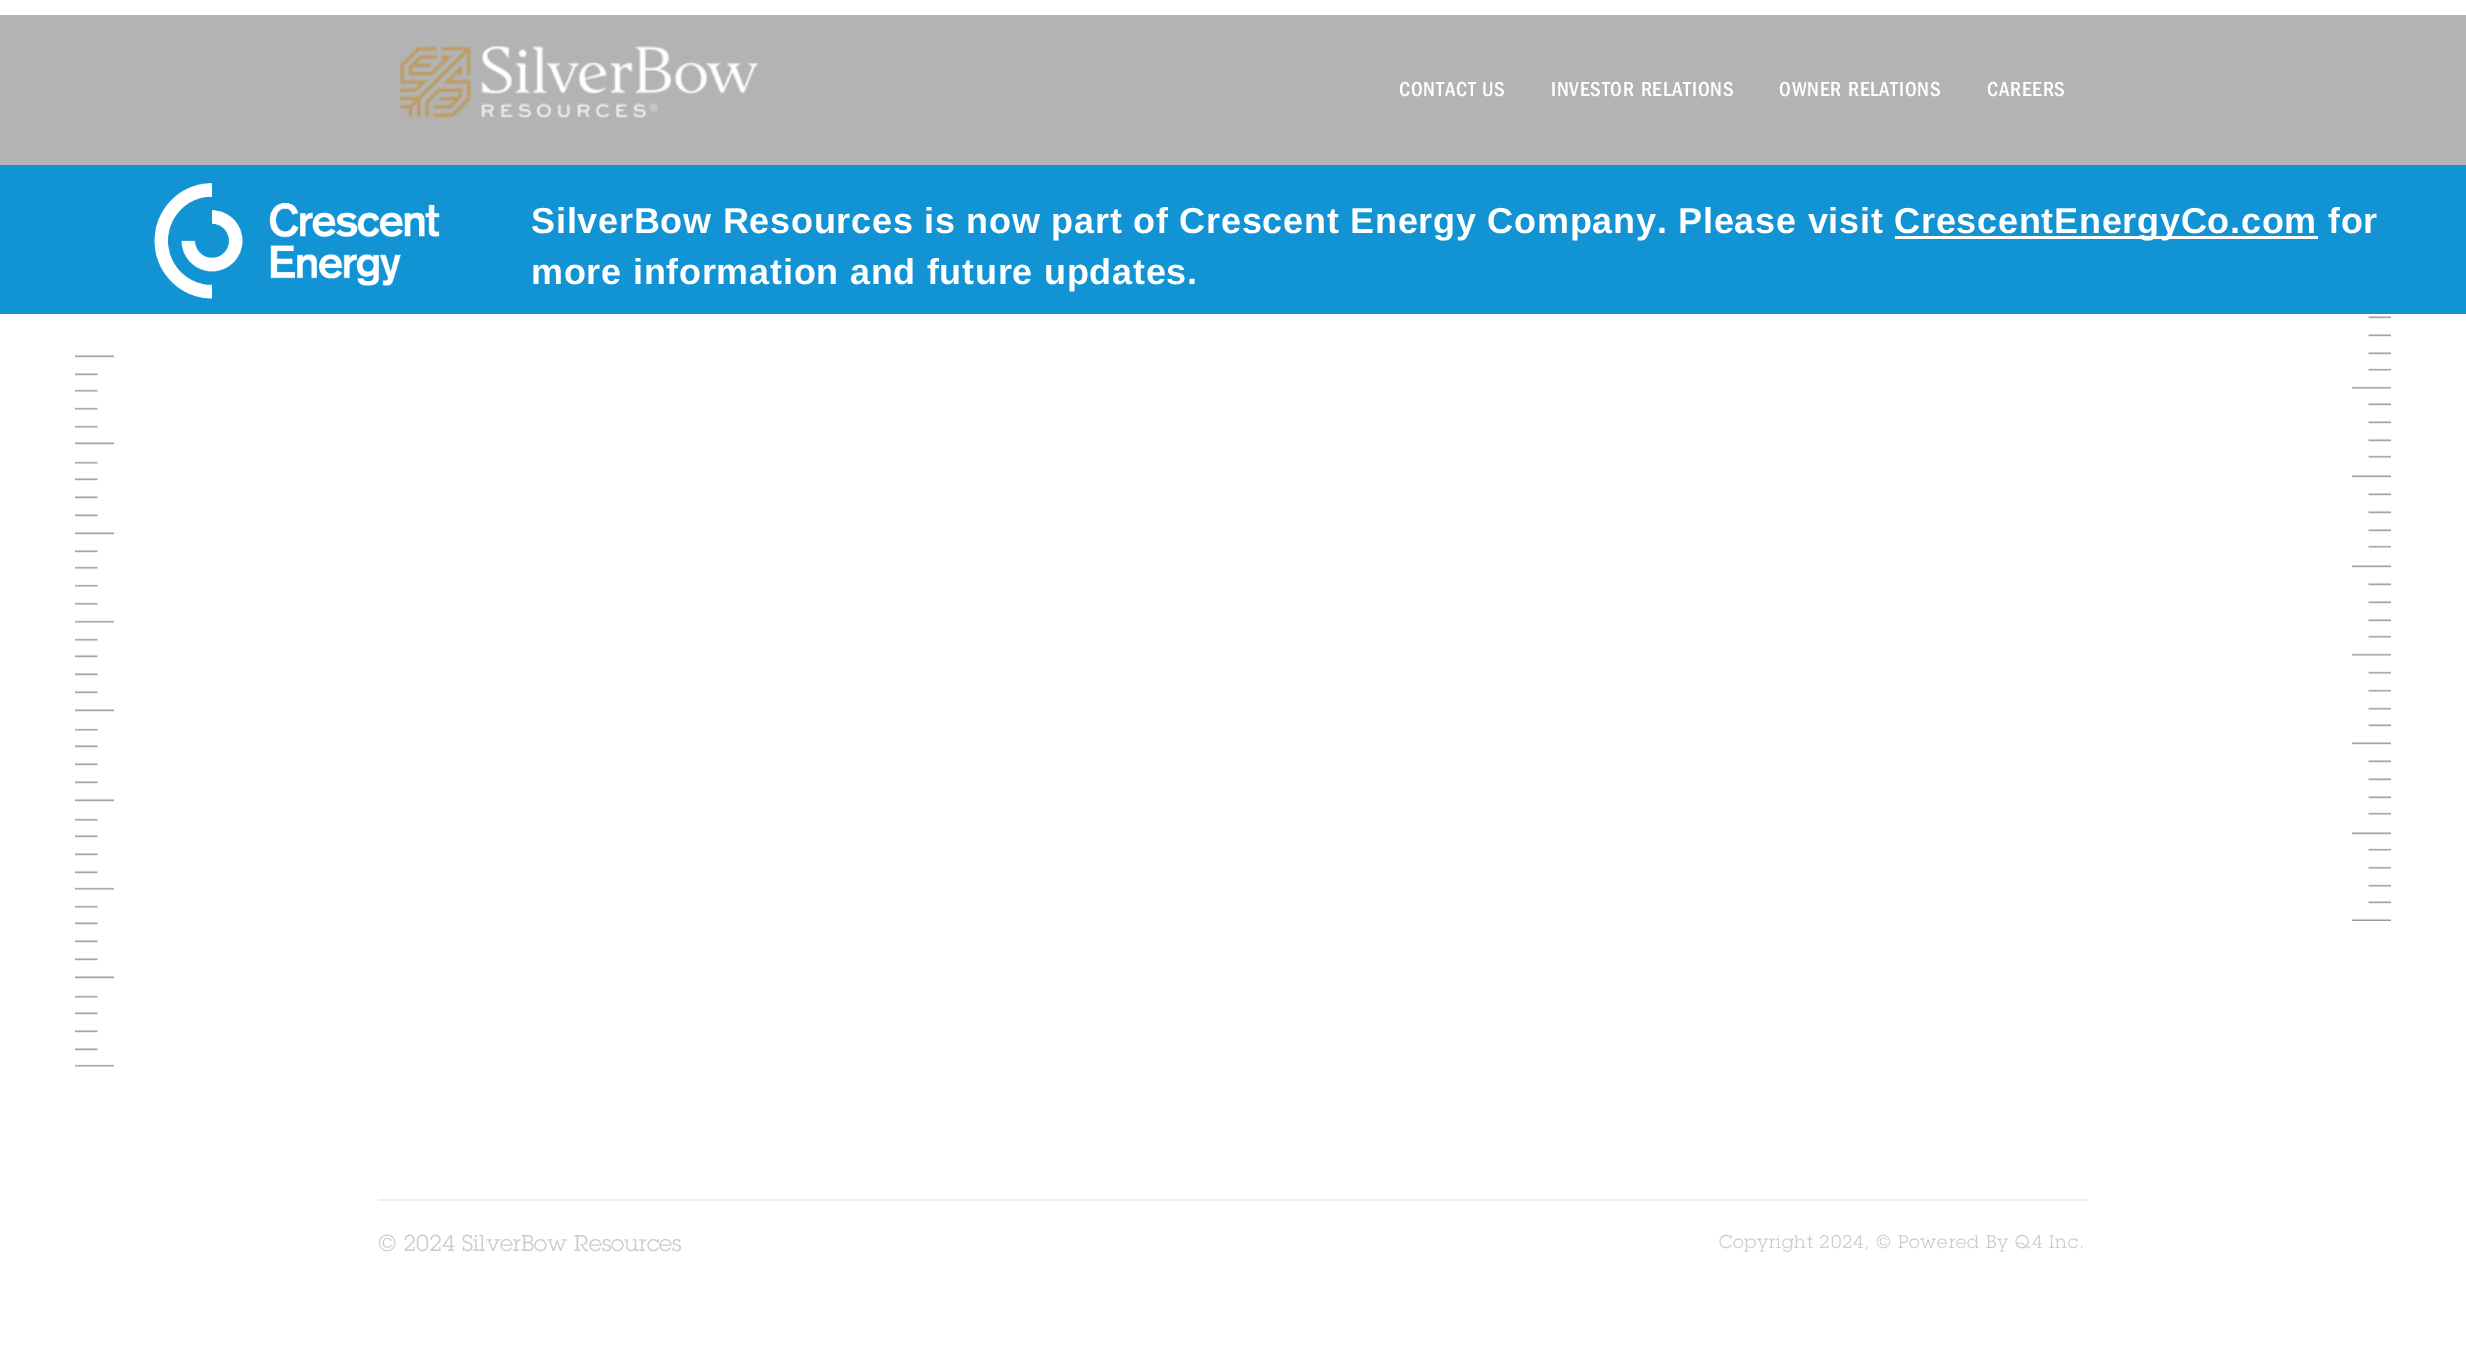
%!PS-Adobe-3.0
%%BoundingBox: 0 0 2466 1368
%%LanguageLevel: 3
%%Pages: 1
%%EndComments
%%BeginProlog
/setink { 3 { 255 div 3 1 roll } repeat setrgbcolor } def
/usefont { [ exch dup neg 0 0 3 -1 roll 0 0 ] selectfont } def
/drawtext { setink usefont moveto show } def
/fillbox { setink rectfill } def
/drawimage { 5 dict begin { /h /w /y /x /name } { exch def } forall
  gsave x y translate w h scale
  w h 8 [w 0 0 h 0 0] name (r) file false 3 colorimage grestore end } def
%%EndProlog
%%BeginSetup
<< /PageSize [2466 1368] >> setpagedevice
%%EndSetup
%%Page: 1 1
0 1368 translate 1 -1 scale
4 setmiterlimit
0 0 2466 1368 255 255 255 fillbox
0 15 2466 150 179 179 179 fillbox
(assets/img1.rgb) 75 355 39 712 drawimage
(assets/img2.rgb) 2352 316 39 605 drawimage
(assets/img3.rgb) 400 46 358 72 drawimage
/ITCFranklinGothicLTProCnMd-Medium 21 usefont
255 255 255 setink
1399 96 moveto 0.75 0 (CONTACT US) ashow
1551 96 moveto 0.75 0 (INVESTOR RELATIONS) ashow
1779 96 moveto 0.75 0 (OWNER RELATIONS) ashow
1987 96 moveto 0.75 0 (CAREERS) ashow
0 165 2466 149 17 147 212 fillbox
(assets/img4.rgb) 154 183 286 116 drawimage
/LiberationSans-Bold 36 usefont
255 255 255 setink
531 233 moveto 0.75 0 (SilverBow Resources is now part of Crescent Energy Company. Please visit) ashow
1895 236 423 3 255 255 255 fillbox
1894 233 moveto 0.75 0 (CrescentEnergyCo.com for) ashow
531 284 moveto 0.75 0 (more information and future updates.) ashow
378 1199 1710 2 238 238 238 fillbox
(© 2024 SilverBow Resources) 378 1251 /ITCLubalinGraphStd-Regular 22.5 204 204 204 drawtext
/ITCLubalinGraphStd-Regular 18 usefont
1719 1248 moveto 0.75 0 (Copyright 2024, © Powered By Q4 Inc.) ashow
showpage
%%EOF
